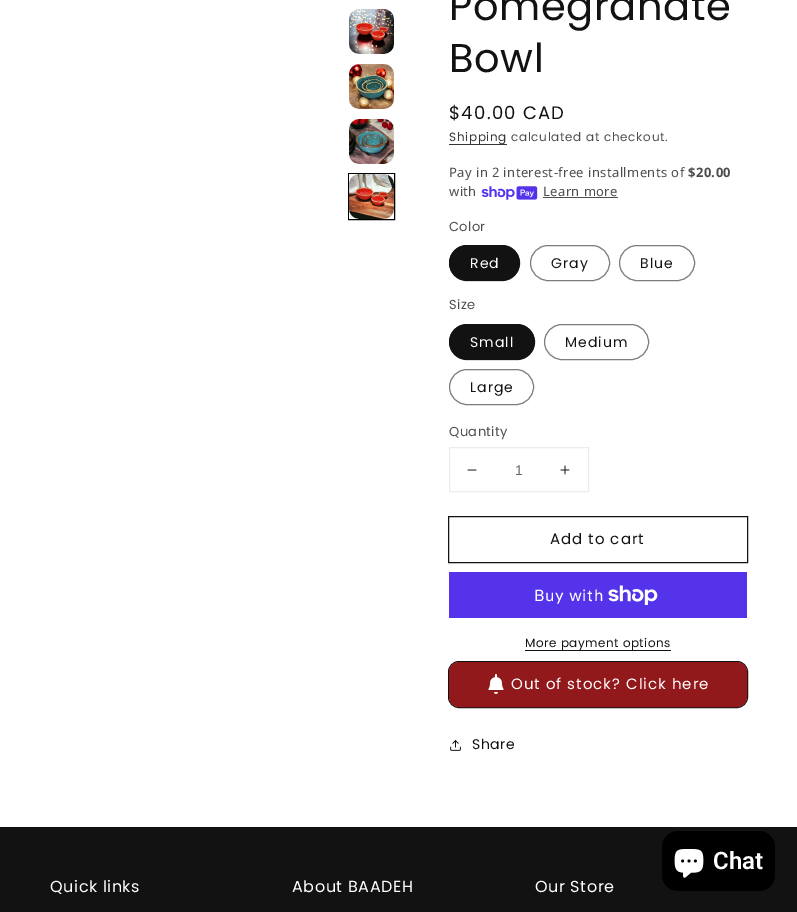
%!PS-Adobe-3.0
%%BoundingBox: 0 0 797 912
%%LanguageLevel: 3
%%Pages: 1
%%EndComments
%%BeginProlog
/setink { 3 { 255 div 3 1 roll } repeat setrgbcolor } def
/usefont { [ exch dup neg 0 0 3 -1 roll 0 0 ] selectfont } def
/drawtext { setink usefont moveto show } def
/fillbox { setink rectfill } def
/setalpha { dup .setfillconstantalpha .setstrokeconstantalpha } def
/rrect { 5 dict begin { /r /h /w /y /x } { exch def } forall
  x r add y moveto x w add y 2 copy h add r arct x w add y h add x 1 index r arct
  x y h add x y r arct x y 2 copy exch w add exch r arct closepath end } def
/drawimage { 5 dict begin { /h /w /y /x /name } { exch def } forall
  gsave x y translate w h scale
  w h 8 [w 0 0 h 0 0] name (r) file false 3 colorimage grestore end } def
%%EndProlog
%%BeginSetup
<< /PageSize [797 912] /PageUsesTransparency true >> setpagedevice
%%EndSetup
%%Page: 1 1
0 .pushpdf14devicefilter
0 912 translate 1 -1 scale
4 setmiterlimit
0 0 797 912 255 255 255 fillbox
(assets/img1.rgb) 349 9 45 45 drawimage
(assets/img2.rgb) 349 64 45 45 drawimage
(assets/img3.rgb) 349 119 45 45 drawimage
0 0 0 setink
348.5 173.5 46 46 rectstroke
(assets/img4.rgb) 349 174 45 45 drawimage
/Poppins-Regular 40 usefont
18 18 18 setink
449 20 moveto 0.6 0 (Pomegranate) ashow
449 72 moveto 0.6 0 (Bowl) ashow
/Poppins-Regular 18 usefont
449 119 moveto 1.25 0 ($40.00 CAD) ashow
449 144 58 1 54 54 54 fillbox
/Poppins-Regular 12 usefont
53 53 53 setink
449 141 moveto 0.7 0 (Shipping) ashow
77 77 77 setink
511 141 moveto 0.7 0 (calculated at checkout.) ashow
/NotoSans-Regular 13 usefont
449 177 moveto 0.4 0 (Pay in 2 interest-free installments of) ashow
/NotoSans-Bold 13 usefont
688 177 moveto 0.4 0 ($20.00) ashow
/NotoSans-Regular 13 usefont
449 196 moveto 0.4 0 (with) ashow
(assets/img5.rgb) 481 186 57 14 drawimage
543 196 moveto 0.4 0 (Learn more) ashow
543 197 75 1 77 77 77 fillbox
/Poppins-Regular 13 usefont
449 231 moveto 0.4 0 (Color) ashow
18 18 18 setink
449 245 71 36 18 rrect fill
0.55 setalpha
449.5 245.5 70 35 17.5 rrect stroke
/Poppins-Regular 14 usefont
1 setalpha
255 255 255 setink
470 268 moveto 1 0 (Red) ashow
125 125 125 setink
530.5 245.5 79 35 17.5 rrect stroke
18 18 18 setink
551 268 moveto 1 0 (Gray) ashow
125 125 125 setink
619.5 245.5 75 35 17.5 rrect stroke
18 18 18 setink
640 268 moveto 1 0 (Blue) ashow
/Poppins-Regular 13 usefont
77 77 77 setink
449 309 moveto 0.4 0 (Size) ashow
18 18 18 setink
449 324 86 36 18 rrect fill
0.55 setalpha
449.5 324.5 85 35 17.5 rrect stroke
/Poppins-Regular 14 usefont
1 setalpha
255 255 255 setink
470 347 moveto 1 0 (Small) ashow
125 125 125 setink
544.5 324.5 104 35 17.5 rrect stroke
18 18 18 setink
565 347 moveto 1 0 (Medium) ashow
125 125 125 setink
449.5 369.5 84 35 17.5 rrect stroke
18 18 18 setink
470 392 moveto 1 0 (Large) ashow
/Poppins-Regular 13 usefont
77 77 77 setink
449 436 moveto 0.4 0 (Quantity) ashow
236 236 236 setink
449.5 447.5 139 44 rectstroke
(assets/img6.rgb) 467 469 10 2 drawimage
(1) 515 475 /LiberationSans-Regular 14 104 104 104 drawtext
(assets/img7.rgb) 560 465 10 10 drawimage
18 18 18 setink
448.5 516.5 299 46 rectstroke
/Poppins-Regular 15 usefont
550 544 moveto 1 0 (Add to cart) ashow
449 572 298 46 84 51 235 fillbox
/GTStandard-Regular 16 usefont
255 255 255 setink
534 601 moveto 0.6 0 (Buy with) ashow
(assets/img8.rgb) 608 585 50 20 drawimage
525 650 146 1 18 18 18 fillbox
/Poppins-Regular 12 usefont
525 647 moveto 0.5 0 (More payment options) ashow
448.5 661.5 299 46 10.5 rrect stroke
145 25 28 setink
449.5 662.5 297 44 9.5 rrect gsave fill grestore
stroke
(assets/img9.rgb) 488 674 16 20 drawimage
/Poppins-Regular 15 usefont
255 255 255 setink
511 689 moveto 1 0 (Out of stock? Click here) ashow
(assets/img10.rgb) 450 740 11 11 drawimage
/Poppins-Regular 14 usefont
18 18 18 setink
472 749 moveto 0.6 0 (Share) ashow
0 827 797 85 18 18 18 fillbox
0 0 0 setink
662 831 113 60 16 rrect fill
(assets/img11.rgb) 674 849 30 29 drawimage
(Chat) 713 869 /Roboto-SemiBold 24 255 255 255 drawtext
/Poppins-Regular 16 usefont
50 892 moveto 0.6 0 (Quick links) ashow
292 892 moveto 0.6 0 (About BAADEH) ashow
535 892 moveto 0.6 0 (Our Store) ashow
.poppdf14devicefilter showpage
%%EOF
